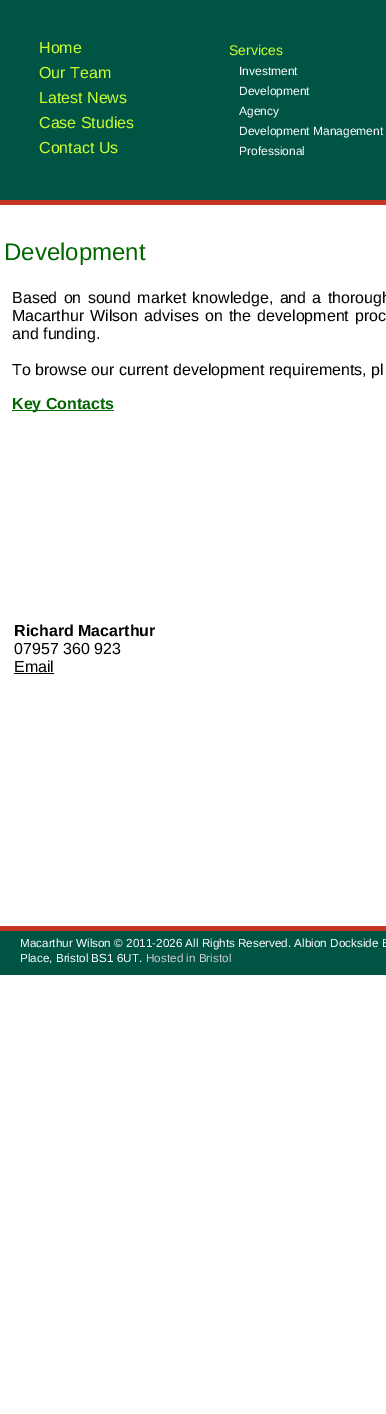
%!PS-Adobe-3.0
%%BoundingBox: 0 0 386 1414
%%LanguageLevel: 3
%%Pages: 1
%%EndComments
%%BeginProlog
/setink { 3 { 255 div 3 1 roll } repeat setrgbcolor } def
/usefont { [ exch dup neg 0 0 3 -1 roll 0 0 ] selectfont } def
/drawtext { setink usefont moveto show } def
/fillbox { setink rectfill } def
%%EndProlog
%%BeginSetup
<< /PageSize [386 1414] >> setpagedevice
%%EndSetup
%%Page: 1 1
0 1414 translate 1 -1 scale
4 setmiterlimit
0 0 386 1414 255 255 255 fillbox
0 0 386 200 0 84 67 fillbox
0 200 386 5 197 53 38 fillbox
(Home) 39 53 /LiberationSans-Regular 16 204 255 51 drawtext
(Our Team) 39 78 /LiberationSans-Regular 16 204 255 51 drawtext
(Latest News) 39 103 /LiberationSans-Regular 16 204 255 51 drawtext
(Case Studies) 39 128 /LiberationSans-Regular 16 204 255 51 drawtext
(Contact Us) 39 153 /LiberationSans-Regular 16 204 255 51 drawtext
(Services) 229 55 /LiberationSans-Regular 14 204 255 51 drawtext
(Investment) 239 75 /LiberationSans-Regular 12 255 255 255 drawtext
(Development) 239 95 /LiberationSans-Regular 12 255 255 255 drawtext
(Agency) 239 115 /LiberationSans-Regular 12 255 255 255 drawtext
(Development Management) 239 135 /LiberationSans-Regular 12 255 255 255 drawtext
(Professional) 239 155 /LiberationSans-Regular 12 255 255 255 drawtext
(Development) 4 260 /LiberationSans-Regular 24 0 102 0 drawtext
/LiberationSans-Regular 16 usefont
0 0 0 setink
12 303 moveto 1.75 0 32 (Based on sound market knowledge, and a thorough) widthshow
12 321 moveto 1.75 0 32 (Macarthur Wilson advises on the development proc) widthshow
(and funding.) 12 339 /LiberationSans-Regular 16 0 0 0 drawtext
(To browse our current development requirements, pl) 12 375 /LiberationSans-Regular 16 0 0 0 drawtext
12 410 102 1 0 102 0 fillbox
(Key Contacts) 12 409 /LiberationSans-Bold 16 0 102 0 drawtext
(Richard Macarthur) 14 636 /LiberationSans-Bold 16 0 0 0 drawtext
(07957 360 923) 14 654 /LiberationSans-Regular 16 0 0 0 drawtext
(Email) 14 672 /LiberationSans-Regular 16 0 0 0 drawtext
14 673 40 1 0 0 0 fillbox
0 931 386 44 0 84 67 fillbox
0 926 386 5 197 53 38 fillbox
(Macarthur Wilson © 2011-2026 All Rights Reserved. Albion Dockside B) 20 947 /LiberationSans-Regular 11.7 255 255 255 drawtext
(Place, Bristol BS1 6UT.) 20 962 /LiberationSans-Regular 11.7 255 255 255 drawtext
(Hosted in Bristol) 146 962 /LiberationSans-Regular 11.7 204 204 204 drawtext
showpage
%%EOF
